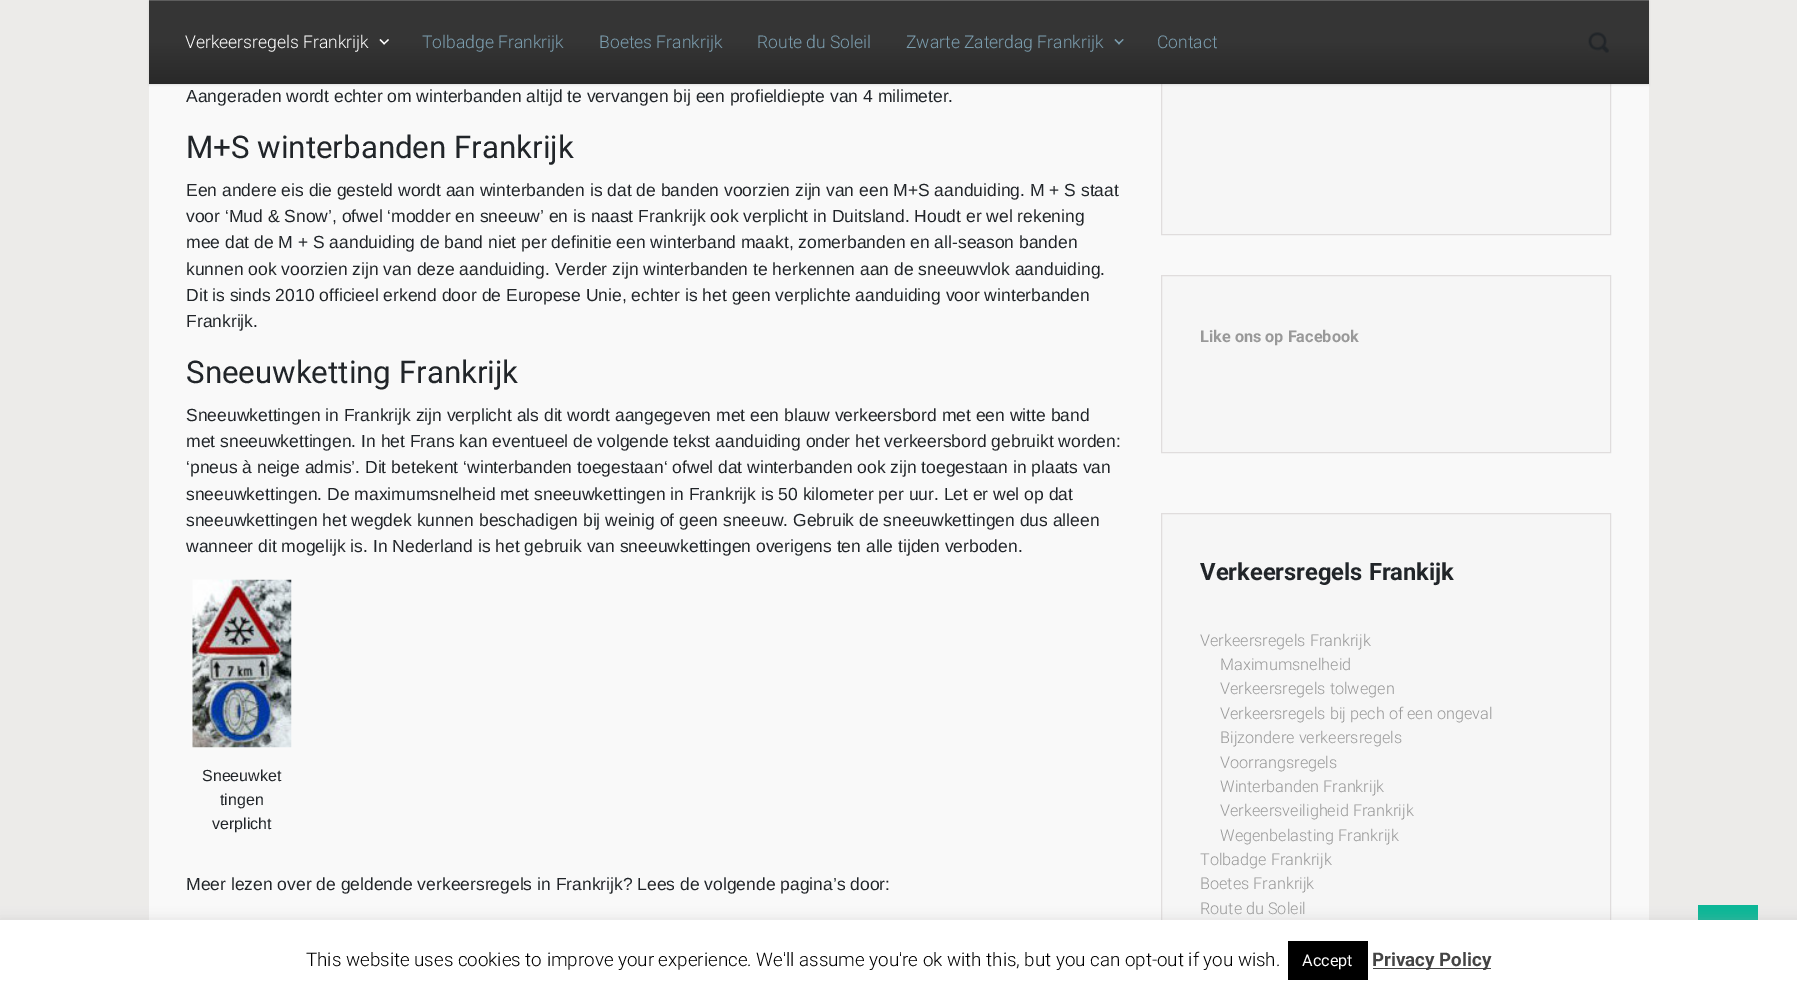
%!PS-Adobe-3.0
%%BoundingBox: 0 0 1797 995
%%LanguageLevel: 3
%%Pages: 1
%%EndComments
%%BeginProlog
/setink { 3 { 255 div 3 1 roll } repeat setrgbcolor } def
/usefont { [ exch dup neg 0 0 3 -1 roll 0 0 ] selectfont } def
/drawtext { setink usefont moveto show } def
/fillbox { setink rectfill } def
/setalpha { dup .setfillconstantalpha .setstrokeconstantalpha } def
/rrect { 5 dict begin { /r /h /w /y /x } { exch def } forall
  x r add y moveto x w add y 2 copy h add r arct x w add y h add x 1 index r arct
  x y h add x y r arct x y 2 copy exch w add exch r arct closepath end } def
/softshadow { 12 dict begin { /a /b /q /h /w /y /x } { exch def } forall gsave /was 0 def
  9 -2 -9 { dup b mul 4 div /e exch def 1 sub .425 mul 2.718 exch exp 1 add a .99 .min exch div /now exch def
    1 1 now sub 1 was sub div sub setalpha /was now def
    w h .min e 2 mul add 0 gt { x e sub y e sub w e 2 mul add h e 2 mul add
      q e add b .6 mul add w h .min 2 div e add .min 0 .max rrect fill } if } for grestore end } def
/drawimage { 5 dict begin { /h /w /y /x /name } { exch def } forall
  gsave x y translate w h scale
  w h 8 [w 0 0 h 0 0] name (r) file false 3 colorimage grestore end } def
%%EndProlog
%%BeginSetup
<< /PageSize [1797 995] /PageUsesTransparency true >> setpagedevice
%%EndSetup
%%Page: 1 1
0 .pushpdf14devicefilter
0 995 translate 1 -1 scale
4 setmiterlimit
0 0 1797 995 236 235 233 fillbox
149 84 1500 836 249 249 249 fillbox
1162 84 448 150 246 246 246 fillbox
224 221 221 setink
1161.5 -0.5 449 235 rectstroke
0 0 0 setink
149 1 1500 84 0 1 0.1 softshadow
gsave 149 1 moveto 1649 1 lineto 1649 84 lineto 149 84 lineto closepath clip newpath
<< /ShadingType 2 /ColorSpace /DeviceRGB /Coords [899 0 899 84] /Extend [true true] /Function << /FunctionType 3 /Domain [0 1] /Functions [<< /FunctionType 2 /Domain [0 1] /C0 [0.208 0.208 0.208] /C1 [0.208 0.208 0.208] /N 1 >> << /FunctionType 2 /Domain [0 1] /C0 [0.208 0.208 0.208] /C1 [0.161 0.161 0.161] /N 1 >>] /Bounds [0.5] /Encode [0 1 0 1] >> >> shfill grestore
149 0 1500 1 93 93 93 fillbox
(Verkeersregels Frankrijk) 185 48 /Roboto-Light 17.5 255 255 255 drawtext
388 39 moveto 389 40 lineto 384 44.5 lineto 383.5 43.5 lineto closepath fill
380.5 39 moveto 385 43.5 lineto 384 44.5 lineto 379.5 40 lineto closepath fill
(Tolbadge Frankrijk) 422 48 /Roboto-Light 17.5 122 156 173 drawtext
(Boetes Frankrijk) 599 48 /Roboto-Light 17.5 122 156 173 drawtext
(Route du Soleil) 757 48 /Roboto-Light 17.5 122 156 173 drawtext
(Zwarte Zaterdag Frankrijk) 906 48 /Roboto-Light 17.5 122 156 173 drawtext
1123 39 moveto 1123.5 40 lineto 1119 44.5 lineto 1118 43.5 lineto closepath fill
1115.5 39 moveto 1120 43.5 lineto 1119 44.5 lineto 1114.5 40 lineto closepath fill
(Contact) 1157 48 /Roboto-Light 17.5 122 156 173 drawtext
(assets/img1.rgb) 1588 32 21 21 drawimage
(Aangeraden wordt echter om winterbanden altijd te vervangen bij een profieldiepte van 4 milimeter.) 186 102 /LiberationSans-Regular 17.5 33 37 41 drawtext
(M+S winterbanden Frankrijk) 186 158 /Roboto-Regular 31.25 33 37 41 drawtext
(Een andere eis die gesteld wordt aan winterbanden is dat de banden voorzien zijn van een M+S aanduiding. M + S staat) 186 196 /LiberationSans-Regular 17.5 33 37 41 drawtext
(voor ‘Mud & Snow’, ofwel ‘modder en sneeuw’ en is naast Frankrijk ook verplicht in Duitsland. Houdt er wel rekening) 186 222 /LiberationSans-Regular 17.5 33 37 41 drawtext
(mee dat de M + S aanduiding de band niet per definitie een winterband maakt, zomerbanden en all-season banden) 186 248 /LiberationSans-Regular 17.5 33 37 41 drawtext
(kunnen ook voorzien zijn van deze aanduiding. Verder zijn winterbanden te herkennen aan de sneeuwvlok aanduiding.) 186 275 /LiberationSans-Regular 17.5 33 37 41 drawtext
(Dit is sinds 2010 officieel erkend door de Europese Unie, echter is het geen verplichte aanduiding voor winterbanden) 186 301 /LiberationSans-Regular 17.5 33 37 41 drawtext
(Frankrijk.) 186 327 /LiberationSans-Regular 17.5 33 37 41 drawtext
(Sneeuwketting Frankrijk) 186 383 /Roboto-Regular 31.25 33 37 41 drawtext
(Sneeuwkettingen in Frankrijk zijn verplicht als dit wordt aangegeven met een blauw verkeersbord met een witte band) 186 421 /LiberationSans-Regular 17.5 33 37 41 drawtext
(met sneeuwkettingen. In het Frans kan eventueel de volgende tekst aanduiding onder het verkeersbord gebruikt worden:) 186 447 /LiberationSans-Regular 17.5 33 37 41 drawtext
(‘pneus à neige admis’. Dit betekent ‘winterbanden toegestaan‘ ofwel dat winterbanden ook zijn toegestaan in plaats van) 186 473 /LiberationSans-Regular 17.5 33 37 41 drawtext
(sneeuwkettingen. De maximumsnelheid met sneeuwkettingen in Frankrijk is 50 kilometer per uur. Let er wel op dat) 186 500 /LiberationSans-Regular 17.5 33 37 41 drawtext
(sneeuwkettingen het wegdek kunnen beschadigen bij weinig of geen sneeuw. Gebruik de sneeuwkettingen dus alleen) 186 526 /LiberationSans-Regular 17.5 33 37 41 drawtext
(wanneer dit mogelijk is. In Nederland is het gebruik van sneeuwkettingen overigens ten alle tijden verboden.) 186 552 /LiberationSans-Regular 17.5 33 37 41 drawtext
(assets/img2.rgb) 192 579 100 169 drawimage
(Sneeuwket) 202 781 /LiberationSans-Regular 16 33 37 41 drawtext
(tingen) 220 805 /LiberationSans-Regular 16 33 37 41 drawtext
(verplicht) 212 829 /LiberationSans-Regular 16 33 37 41 drawtext
(Meer lezen over de geldende verkeersregels in Frankrijk? Lees de volgende pagina’s door:) 186 890 /LiberationSans-Regular 17.5 33 37 41 drawtext
246 246 246 setink
1161.5 275.5 moveto 1610.5 275.5 lineto 1610.5 452.5 lineto 1161.5 452.5 lineto closepath gsave fill grestore
224 221 221 setink
stroke
(Like ons op Facebook) 1200 342 /Roboto-Bold 16.25 153 153 153 drawtext
1162 514 448 406 246 246 246 fillbox
224 221 221 setink
1161.5 513.5 449 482 rectstroke
(Verkeersregels Frankijk) 1200 580 /Roboto-Bold 23.75 33 37 41 drawtext
(Verkeersregels Frankrijk) 1200 646 /Roboto-Light 16.25 153 153 153 drawtext
(Maximumsnelheid) 1220 670 /Roboto-Light 16.25 153 153 153 drawtext
(Verkeersregels tolwegen) 1220 694 /Roboto-Light 16.25 153 153 153 drawtext
(Verkeersregels bij pech of een ongeval) 1220 719 /Roboto-Light 16.25 153 153 153 drawtext
(Bijzondere verkeersregels) 1220 743 /Roboto-Light 16.25 153 153 153 drawtext
(Voorrangsregels) 1220 768 /Roboto-Light 16.25 153 153 153 drawtext
(Winterbanden Frankrijk) 1220 792 /Roboto-Light 16.25 153 153 153 drawtext
(Verkeersveiligheid Frankrijk) 1220 816 /Roboto-Light 16.25 153 153 153 drawtext
(Wegenbelasting Frankrijk) 1220 841 /Roboto-Light 16.25 153 153 153 drawtext
(Tolbadge Frankrijk) 1200 865 /Roboto-Light 16.25 153 153 153 drawtext
(Boetes Frankrijk) 1200 889 /Roboto-Light 16.25 153 153 153 drawtext
(Route du Soleil) 1200 914 /Roboto-Light 16.25 153 153 153 drawtext
1698 905 60 15 11 182 151 fillbox
172 171 171 setink
0 919 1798 75 0 6 0.3 softshadow
0 920 1797 75 255 255 255 fillbox
(This website uses cookies to improve your experience. We'll assume you're ok with this, but you can opt-out if you wish.) 306 966 /Roboto-Light 18.75 0 0 0 drawtext
1288 941 80 39 0 0 0 fillbox
(Accept) 1302 966 /Roboto-Regular 16.25 255 255 255 drawtext
1373 968 118 1 68 68 68 fillbox
(Privacy Policy) 1372 966 /Roboto-Bold 18.75 68 68 68 drawtext
.poppdf14devicefilter showpage
%%EOF
